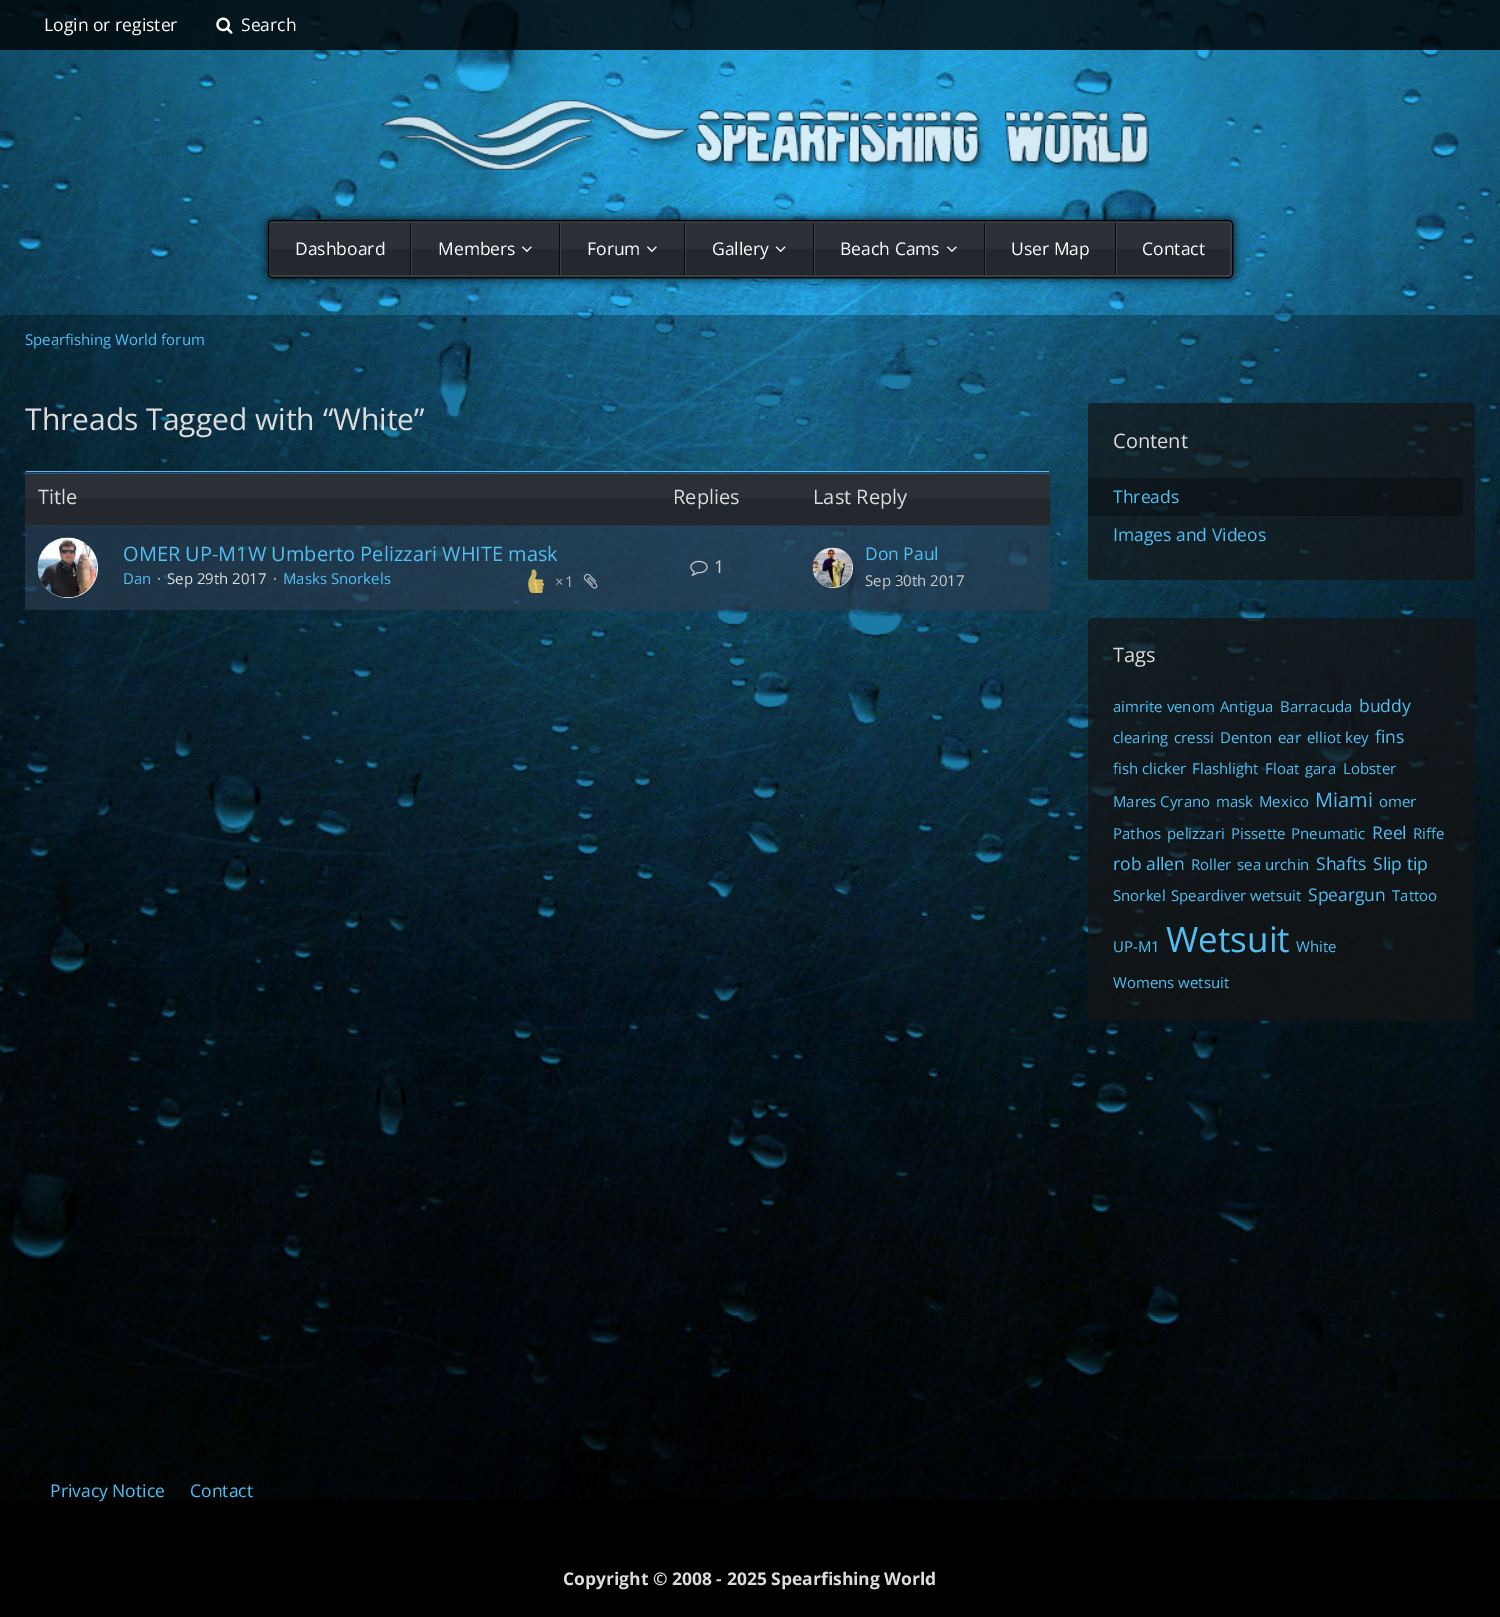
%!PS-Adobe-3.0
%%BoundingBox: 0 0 1500 1617
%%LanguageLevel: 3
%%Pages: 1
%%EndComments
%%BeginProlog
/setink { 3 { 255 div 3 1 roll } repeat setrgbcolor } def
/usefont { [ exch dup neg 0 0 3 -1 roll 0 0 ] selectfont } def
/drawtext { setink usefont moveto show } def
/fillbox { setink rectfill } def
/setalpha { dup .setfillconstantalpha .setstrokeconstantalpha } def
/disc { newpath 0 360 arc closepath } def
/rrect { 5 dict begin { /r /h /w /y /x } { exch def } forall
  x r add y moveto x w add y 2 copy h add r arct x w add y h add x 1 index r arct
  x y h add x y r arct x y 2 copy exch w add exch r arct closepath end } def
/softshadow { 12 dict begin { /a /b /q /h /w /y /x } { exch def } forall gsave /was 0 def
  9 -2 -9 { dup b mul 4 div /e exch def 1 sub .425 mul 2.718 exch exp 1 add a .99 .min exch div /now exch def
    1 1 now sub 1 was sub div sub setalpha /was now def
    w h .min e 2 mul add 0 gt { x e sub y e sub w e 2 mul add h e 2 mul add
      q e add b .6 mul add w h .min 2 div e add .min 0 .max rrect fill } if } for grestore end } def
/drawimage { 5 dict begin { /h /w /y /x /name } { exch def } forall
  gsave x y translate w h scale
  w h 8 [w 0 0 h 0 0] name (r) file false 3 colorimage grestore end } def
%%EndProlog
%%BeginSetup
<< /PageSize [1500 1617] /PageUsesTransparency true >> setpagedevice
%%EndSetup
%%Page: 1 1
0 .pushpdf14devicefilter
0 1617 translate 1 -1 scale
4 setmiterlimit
0 0 1500 1617 0 0 0 fillbox
(assets/img1.rgb) 0 0 1500 1500 drawimage
0.8 setalpha
0 0 1500 50 0 0 0 fillbox
1 setalpha
(Login or register) 44 31 /OpenSans-Regular 17.5 255 255 255 drawtext
(assets/img2.rgb) 216 17 17 17 drawimage
(Search) 241 31 /OpenSans-Regular 17.5 255 255 255 drawtext
(assets/img3.rgb) 380 100 769 70 drawimage
0 0 0 setink
268 220 965 58 4 5.5 1 softshadow
56 63 69 setink
268.5 220.5 964 57 3.5 rrect gsave fill grestore
0 0 0 setink
stroke
43 48 54 setink
272.5 223 moveto 411 223 lineto 411 249 lineto 270 249 lineto 270 225.5 lineto 270 224 271 223 272.5 223 curveto closepath fill
35 40 46 setink
270 249 moveto 411 249 lineto 411 275 lineto 272.5 275 lineto 271 275 270 274 270 272.5 curveto closepath fill
410 223 1 52 7 9 11 fillbox
(Dashboard) 295 255 /OpenSans-Regular 17.5 255 255 255 drawtext
412 249 147 26 35 40 46 fillbox
412 223 147 26 43 48 54 fillbox
559 223 1 52 7 9 11 fillbox
411 223 1 52 59 66 73 fillbox
(Members) 438 255 /OpenSans-Regular 17.5 255 255 255 drawtext
(assets/img4.rgb) 522 246 10 6 drawimage
561 249 123 26 35 40 46 fillbox
561 223 123 26 43 48 54 fillbox
684 223 1 52 7 9 11 fillbox
560 223 1 52 59 66 73 fillbox
(Forum) 587 255 /OpenSans-Regular 17.5 255 255 255 drawtext
(assets/img4.rgb) 647 246 10 6 drawimage
686 249 127 26 35 40 46 fillbox
686 223 127 26 43 48 54 fillbox
813 223 1 52 7 9 11 fillbox
685 223 1 52 59 66 73 fillbox
(Gallery) 712 255 /OpenSans-Regular 17.5 255 255 255 drawtext
(assets/img5.rgb) 775 246 11 6 drawimage
815 249 169 26 35 40 46 fillbox
815 223 169 26 43 48 54 fillbox
984 223 1 52 7 9 11 fillbox
814 223 1 52 59 66 73 fillbox
(Beach Cams) 840 255 /OpenSans-Regular 17.5 255 255 255 drawtext
(assets/img4.rgb) 947 246 10 6 drawimage
986 249 129 26 35 40 46 fillbox
986 223 129 26 43 48 54 fillbox
1115 223 1 52 7 9 11 fillbox
985 223 1 52 59 66 73 fillbox
(User Map) 1011 255 /OpenSans-Regular 17.5 255 255 255 drawtext
43 48 54 setink
1116 223 moveto 1227.5 223 lineto 1229 223 1230 224 1230 225.5 curveto 1230 249 lineto 1116 249 lineto closepath fill
35 40 46 setink
1116 249 moveto 1230 249 lineto 1230 272.5 lineto 1230 274 1229 275 1227.5 275 curveto 1116 275 lineto closepath fill
1116 223 1 52 59 66 73 fillbox
(Contact) 1142 255 /OpenSans-Regular 17.5 255 255 255 drawtext
0.3 setalpha
0 315 1500 50 0 0 0 fillbox
1 setalpha
(Spearfishing World forum) 25 345 /OpenSans-Regular 15 81 191 243 drawtext
0.3 setalpha
0 365 1500 1089 0 0 0 fillbox
1 setalpha
(Threads Tagged with “White”) 25 430 /OpenSans-Regular 30 221 221 221 drawtext
0.7 setalpha
40 60 80 setink
29 471 moveto 1046 471 lineto 1048 471 1050 473 1050 475 curveto 1050 525 lineto 25 525 lineto 25 475 lineto 25 473 27 471 29 471 curveto closepath fill
gsave
29 471 moveto 1046 471 lineto 1048 471 1050 473 1050 475 curveto 1050 525 lineto 25 525 lineto 25 475 lineto 25 473 27 471 29 471 curveto closepath clip newpath
1 setalpha
25 471 1025 1 102 183 232 fillbox
grestore
1 setalpha
22 92 135 setink
25 473 1025 1 0.5 rrect fill
25 474 1025 24 43 48 54 fillbox
25 498 1025 25 35 40 46 fillbox
25 523 1025 3 35 40 45 fillbox
(Title) 38 504 /OpenSans-Regular 20 221 221 221 drawtext
(Replies) 673 504 /OpenSans-Regular 20 221 221 221 drawtext
(Last Reply) 813 504 /OpenSans-Regular 20 221 221 221 drawtext
0.7 setalpha
25 525 1025 85 40 60 80 fillbox
1 setalpha
255 255 255 setink
68 568 30 disc fill
(assets/img6.rgb) 37 537 61 61 drawimage
(OMER UP-M1W Umberto Pelizzari WHITE mask) 123 561 /OpenSans-Regular 20 81 191 243 drawtext
(Dan) 123 584 /OpenSans-Regular 15 81 191 243 drawtext
(·) 157 584 /OpenSans-Regular 15 221 221 221 drawtext
(Sep 29th 2017) 167 584 /OpenSans-Regular 15 221 221 221 drawtext
(·) 273 584 /OpenSans-Regular 15 221 221 221 drawtext
(Masks Snorkels) 283 584 /OpenSans-Regular 15 81 191 243 drawtext
(assets/img7.rgb) 528 569 16 24 drawimage
(×) 555 587 /OpenSans-Regular 15 174 180 185 drawtext
(1) 565 587 /OpenSans-Regular 15 174 180 185 drawtext
(assets/img8.rgb) 583 573 15 16 drawimage
(assets/img9.rgb) 690 560 18 16 drawimage
(1) 714 573 /OpenSans-Regular 17.5 204 204 204 drawtext
255 255 255 setink
833 568 20 disc fill
(assets/img10.rgb) 812 547 41 41 drawimage
(Don Paul) 865 560 /OpenSans-Regular 17.5 81 191 243 drawtext
(Sep 30th 2017) 865 586 /OpenSans-Regular 15 204 204 204 drawtext
0.7 setalpha
20 20 20 setink
1088 403 387 177 4 rrect fill
1 setalpha
(Content) 1113 448 /OpenSans-Regular 20 221 221 221 drawtext
0.3 setalpha
1088 478 375 38 0 0 0 fillbox
1 setalpha
(Threads) 1113 503 /OpenSans-Regular 17.5 81 191 243 drawtext
(Images and Videos) 1113 541 /OpenSans-Regular 17.5 81 191 243 drawtext
0.7 setalpha
20 20 20 setink
1088 618 387 403 4 rrect fill
1 setalpha
(Tags) 1113 662 /OpenSans-Regular 20 221 221 221 drawtext
(aimrite venom) 1113 712 /OpenSans-Regular 15 81 191 243 drawtext
(Antigua) 1220 712 /OpenSans-Regular 15 81 191 243 drawtext
(Barracuda) 1280 712 /OpenSans-Regular 15 81 191 243 drawtext
(buddy) 1359 712 /OpenSans-Regular 17.5 81 191 243 drawtext
(clearing) 1113 743 /OpenSans-Regular 15 81 191 243 drawtext
(cressi) 1174 743 /OpenSans-Regular 15 81 191 243 drawtext
(Denton) 1220 743 /OpenSans-Regular 15 81 191 243 drawtext
(ear) 1278 743 /OpenSans-Regular 15 81 191 243 drawtext
(elliot key) 1307 743 /OpenSans-Regular 15 81 191 243 drawtext
(fins) 1375 743 /OpenSans-Regular 17.5 81 191 243 drawtext
(fish clicker) 1113 774 /OpenSans-Regular 15 81 191 243 drawtext
(Flashlight) 1192 774 /OpenSans-Regular 15 81 191 243 drawtext
(Float) 1265 774 /OpenSans-Regular 15 81 191 243 drawtext
(gara) 1305 774 /OpenSans-Regular 15 81 191 243 drawtext
(Lobster) 1343 774 /OpenSans-Regular 15 81 191 243 drawtext
(Mares Cyrano) 1113 807 /OpenSans-Regular 15 81 191 243 drawtext
(mask) 1216 807 /OpenSans-Regular 15 81 191 243 drawtext
(Mexico) 1259 807 /OpenSans-Regular 15 81 191 243 drawtext
(Miami) 1315 807 /OpenSans-Regular 20 81 191 243 drawtext
(omer) 1379 807 /OpenSans-Regular 15 81 191 243 drawtext
(Pathos) 1113 839 /OpenSans-Regular 15 81 191 243 drawtext
(pelizzari) 1167 839 /OpenSans-Regular 15 81 191 243 drawtext
(Pissette) 1231 839 /OpenSans-Regular 15 81 191 243 drawtext
(Pneumatic) 1291 839 /OpenSans-Regular 15 81 191 243 drawtext
(Reel) 1372 839 /OpenSans-Regular 17.5 81 191 243 drawtext
(Riffe) 1413 839 /OpenSans-Regular 15 81 191 243 drawtext
(rob allen) 1113 870 /OpenSans-Regular 17.5 81 191 243 drawtext
(Roller) 1191 870 /OpenSans-Regular 15 81 191 243 drawtext
(sea urchin) 1237 870 /OpenSans-Regular 15 81 191 243 drawtext
(Shafts) 1316 870 /OpenSans-Regular 17.5 81 191 243 drawtext
(Slip tip) 1373 870 /OpenSans-Regular 17.5 81 191 243 drawtext
(Snorkel) 1113 901 /OpenSans-Regular 15 81 191 243 drawtext
(Speardiver wetsuit) 1171 901 /OpenSans-Regular 15 81 191 243 drawtext
(Speargun) 1308 901 /OpenSans-Regular 17.5 81 191 243 drawtext
(Tattoo) 1392 901 /OpenSans-Regular 15 81 191 243 drawtext
(UP-M1) 1113 952 /OpenSans-Regular 15 81 191 243 drawtext
(Wetsuit) 1166 952 /OpenSans-Regular 35 81 191 243 drawtext
(White) 1296 952 /OpenSans-Regular 15 81 191 243 drawtext
(Womens wetsuit) 1113 988 /OpenSans-Regular 15 81 191 243 drawtext
0.3 setalpha
0 1454 1500 46 0 0 0 fillbox
1 setalpha
(Privacy Notice) 50 1497 /OpenSans-Regular 17.5 81 191 243 drawtext
(Contact) 190 1497 /OpenSans-Regular 17.5 81 191 243 drawtext
(Copyright © 2008 - 2025 Spearfishing World) 563 1585 /OpenSans-Bold 17.5 221 221 221 drawtext
.poppdf14devicefilter showpage
%%EOF
